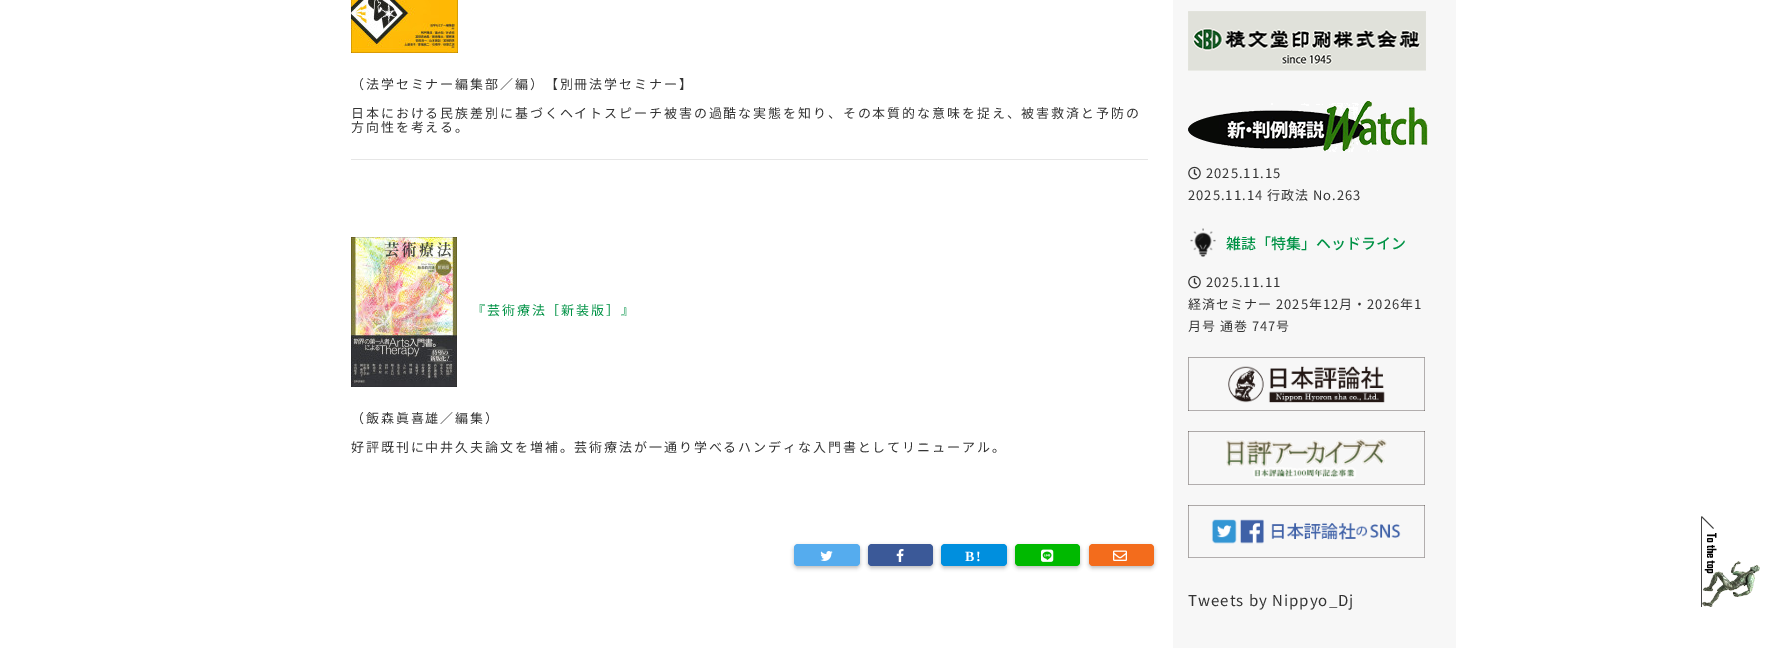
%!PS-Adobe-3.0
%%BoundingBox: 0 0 1781 648
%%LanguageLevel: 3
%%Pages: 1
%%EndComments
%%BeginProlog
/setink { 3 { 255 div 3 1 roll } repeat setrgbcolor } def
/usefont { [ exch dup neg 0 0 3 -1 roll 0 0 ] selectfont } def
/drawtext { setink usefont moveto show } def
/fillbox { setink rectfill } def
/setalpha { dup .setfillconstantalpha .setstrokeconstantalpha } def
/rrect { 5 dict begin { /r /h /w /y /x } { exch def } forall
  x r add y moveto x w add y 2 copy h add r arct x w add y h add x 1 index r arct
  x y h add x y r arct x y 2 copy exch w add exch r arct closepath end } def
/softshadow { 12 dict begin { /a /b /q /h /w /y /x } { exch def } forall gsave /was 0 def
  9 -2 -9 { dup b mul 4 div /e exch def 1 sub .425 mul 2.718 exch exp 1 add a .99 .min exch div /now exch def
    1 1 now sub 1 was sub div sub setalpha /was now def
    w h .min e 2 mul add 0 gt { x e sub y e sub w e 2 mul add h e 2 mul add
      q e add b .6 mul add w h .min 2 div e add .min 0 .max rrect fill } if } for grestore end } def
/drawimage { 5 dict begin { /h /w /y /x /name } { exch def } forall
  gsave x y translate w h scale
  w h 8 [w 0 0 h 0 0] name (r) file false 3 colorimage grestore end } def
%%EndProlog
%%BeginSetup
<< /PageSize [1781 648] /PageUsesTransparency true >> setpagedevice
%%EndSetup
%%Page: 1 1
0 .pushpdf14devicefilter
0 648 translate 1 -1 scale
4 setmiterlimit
0 0 1781 648 255 255 255 fillbox
(assets/img1.rgb) 351 0 107 53 drawimage
/NotoSansJP-Regular 13 usefont
51 51 51 setink
351 89 moveto 1.9 0 (（法学セミナー編集部／編）【別冊法学セミナー】) ashow
351 118 moveto 1.9 0 (日本における民族差別に基づくヘイトスピーチ被害の過酷な実態を知り、その本質的な意味を捉え、被害救済と予防の) ashow
351 132 moveto 1.9 0 (方向性を考える。) ashow
351 159 797 1 230 230 230 fillbox
(assets/img2.rgb) 351 237 106 150 drawimage
0 146 69 setink
472 315 moveto 1.9 0 (『芸術療法［新装版］』) ashow
51 51 51 setink
351 423 moveto 1.9 0 (（飯森眞喜雄／編集）) ashow
351 452 moveto 1.9 0 (好評既刊に中井久夫論文を増補。芸術療法が一通り学べるハンディな入門書としてリニューアル。) ashow
0 0 0 setink
794 546 66 22 4 2 0.26 softshadow
85 172 238 setink
794 544 66 22 4 rrect fill
(assets/img3.rgb) 820 551 13 10 drawimage
0 0 0 setink
868 546 65 22 4 2 0.26 softshadow
59 89 152 setink
868 544 65 22 4 rrect fill
(assets/img4.rgb) 896 549 8 13 drawimage
0 0 0 setink
941 546 66 22 4 2 0.26 softshadow
0 143 222 setink
941 544 66 22 4 rrect fill
/LiberationSerif-Bold 14 usefont
255 255 255 setink
965 561 moveto 1.9 0 (B!) ashow
0 0 0 setink
1015 546 65 22 4 2 0.26 softshadow
0 185 0 setink
1015 544 65 22 4 rrect fill
(assets/img5.rgb) 1041 549 13 13 drawimage
0 0 0 setink
1089 546 65 22 4 2 0.26 softshadow
243 108 28 setink
1089 544 65 22 4 rrect fill
(assets/img6.rgb) 1113 550 14 11 drawimage
1173 0 283 648 247 247 247 fillbox
(assets/img7.rgb) 1188 11 238 60 drawimage
(assets/img8.rgb) 1188 101 240 51 drawimage
(assets/img9.rgb) 1188 166 13 14 drawimage
/NotoSansJP-Regular 13 usefont
51 51 51 setink
1206 178 moveto 1 0 (2025.11.15) ashow
1188 200 moveto 1 0 (2025.11.14 行政法 No.263) ashow
(assets/img10.rgb) 1190 228 26 29 drawimage
(雑誌「特集」ヘッドライン) 1226 249 /NotoSansJP-Medium 15 0 146 69 drawtext
(assets/img9.rgb) 1188 275 13 14 drawimage
/NotoSansJP-Regular 13 usefont
51 51 51 setink
1206 287 moveto 1 0 (2025.11.11) ashow
1188 309 moveto 1 0 (経済セミナー 2025年12月・2026年1) ashow
1188 331 moveto 1 0 (月号 通巻 747号) ashow
(assets/img11.rgb) 1188 357 237 54 drawimage
(assets/img12.rgb) 1188 431 237 54 drawimage
(assets/img13.rgb) 1188 505 237 53 drawimage
/NotoSansJP-Regular 15 usefont
1188 606 moveto 1 0 (Tweets by Nippyo_Dj) ashow
(assets/img14.rgb) 1701 516 59 91 drawimage
.poppdf14devicefilter showpage
%%EOF
